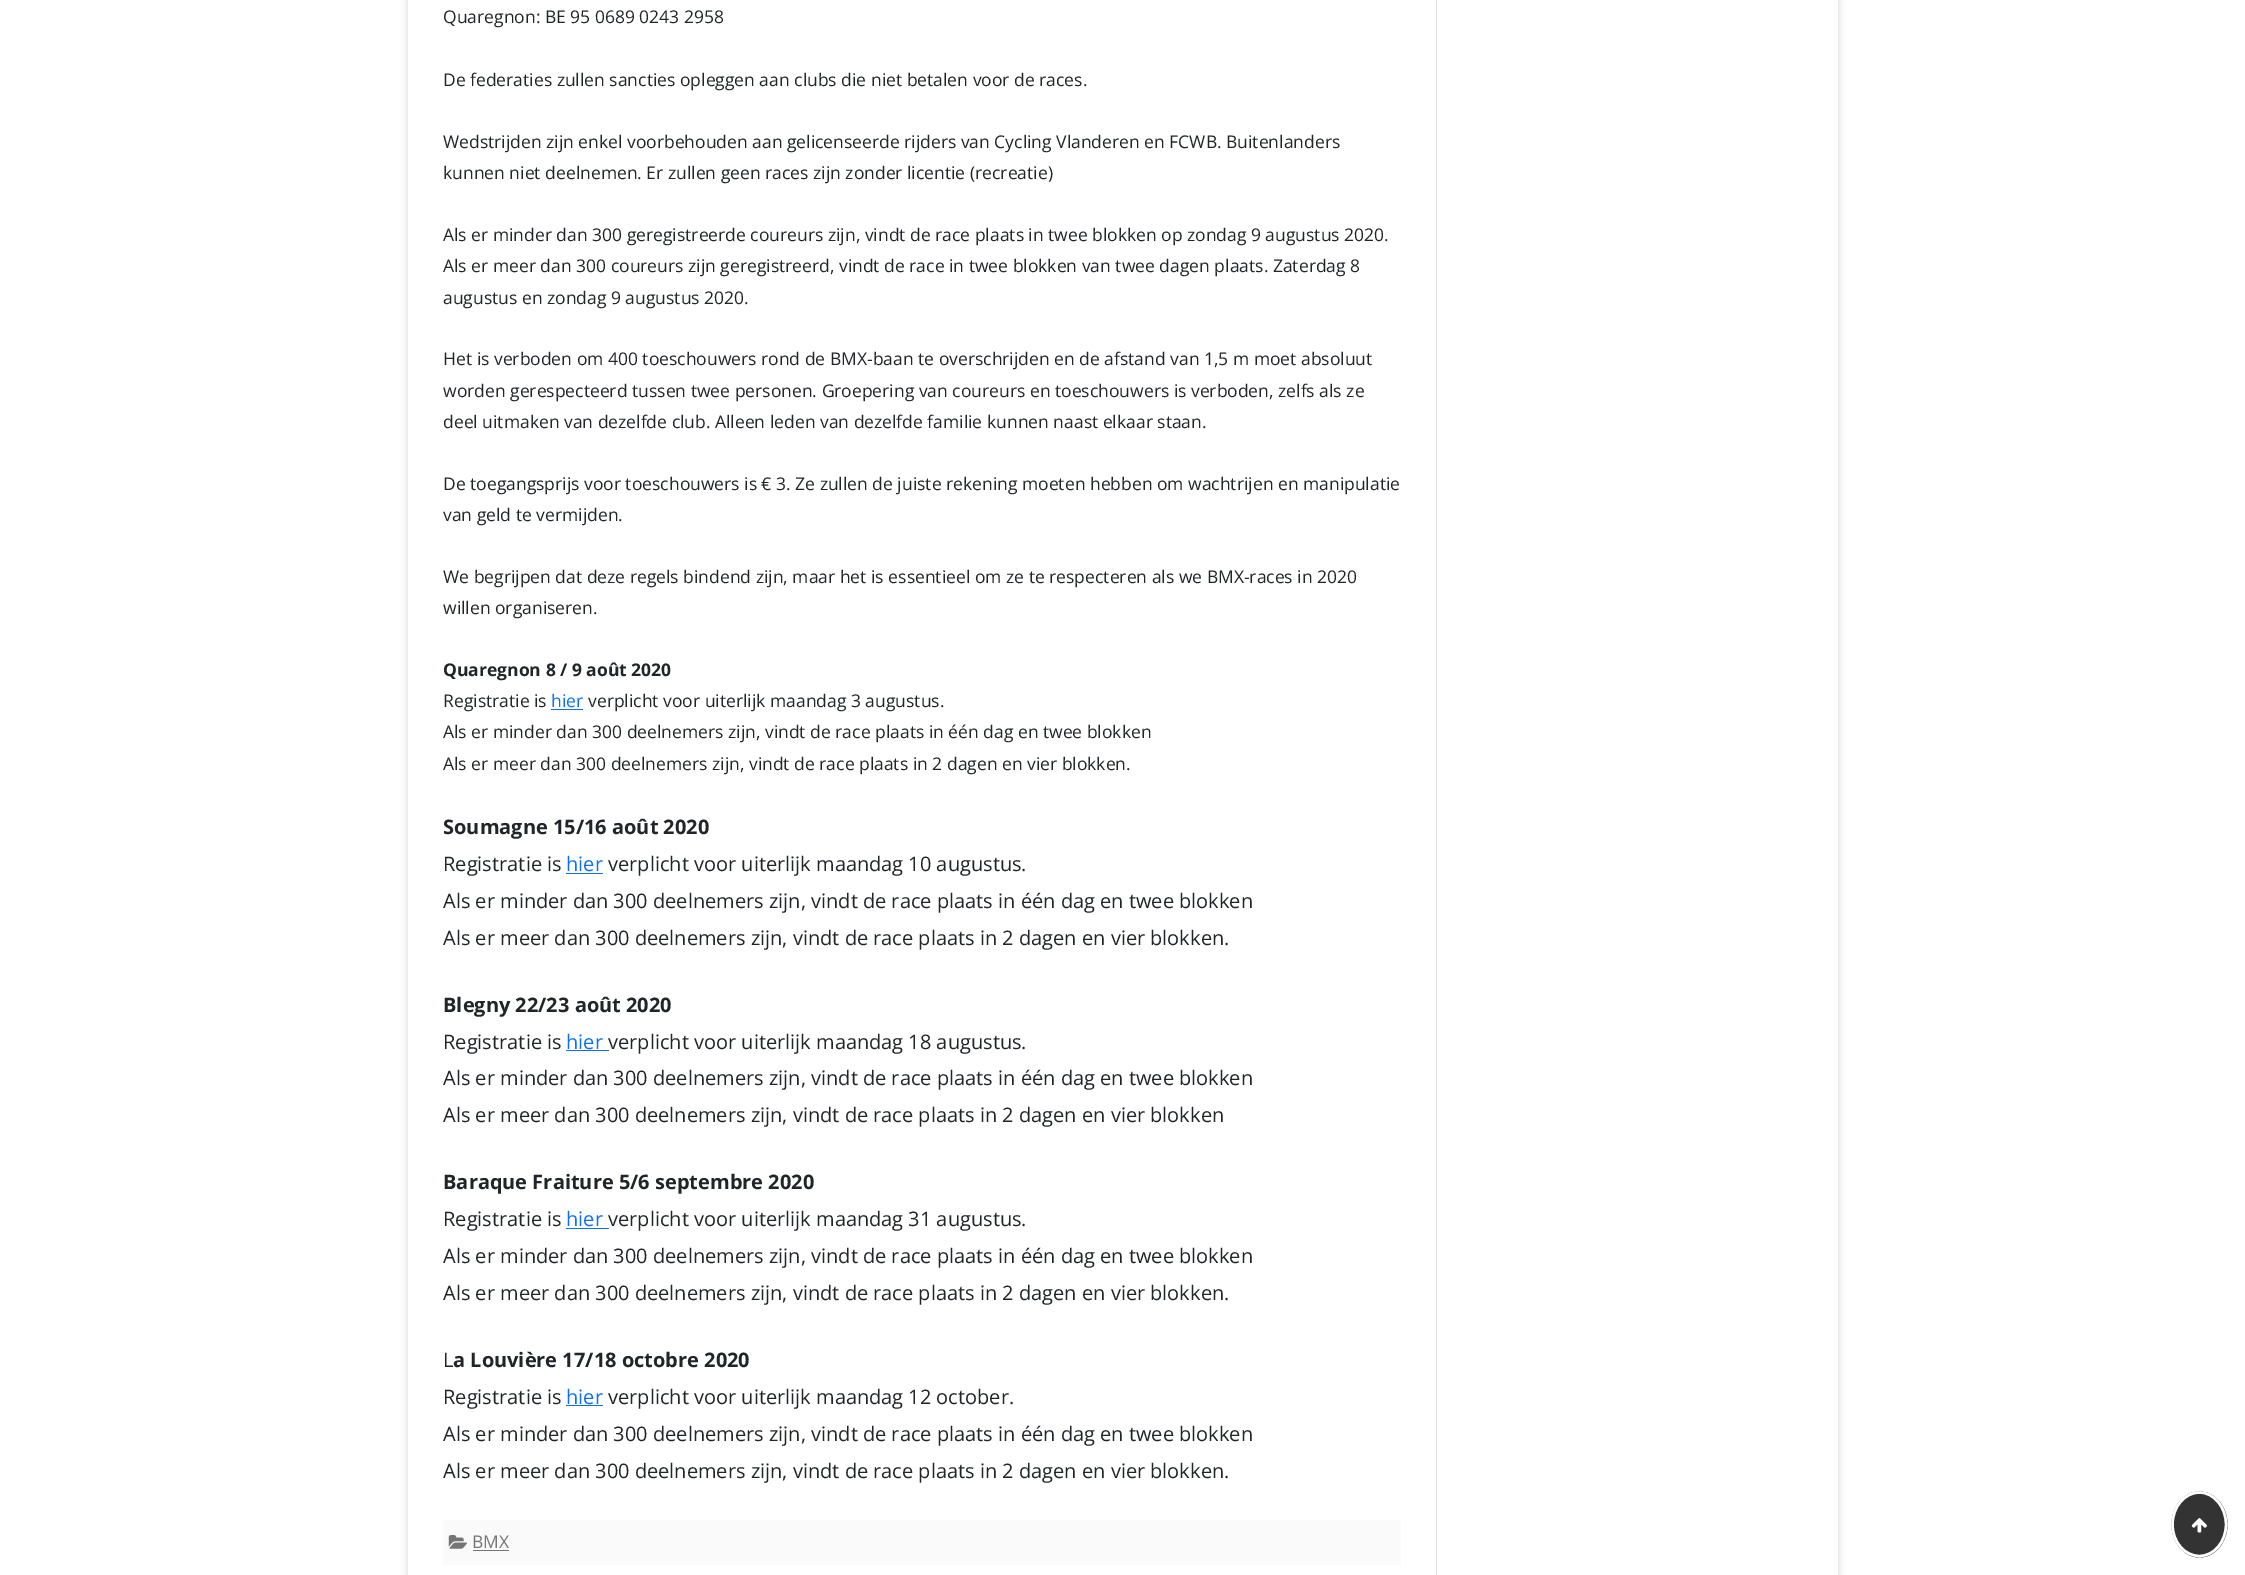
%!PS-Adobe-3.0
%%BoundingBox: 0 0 2245 1575
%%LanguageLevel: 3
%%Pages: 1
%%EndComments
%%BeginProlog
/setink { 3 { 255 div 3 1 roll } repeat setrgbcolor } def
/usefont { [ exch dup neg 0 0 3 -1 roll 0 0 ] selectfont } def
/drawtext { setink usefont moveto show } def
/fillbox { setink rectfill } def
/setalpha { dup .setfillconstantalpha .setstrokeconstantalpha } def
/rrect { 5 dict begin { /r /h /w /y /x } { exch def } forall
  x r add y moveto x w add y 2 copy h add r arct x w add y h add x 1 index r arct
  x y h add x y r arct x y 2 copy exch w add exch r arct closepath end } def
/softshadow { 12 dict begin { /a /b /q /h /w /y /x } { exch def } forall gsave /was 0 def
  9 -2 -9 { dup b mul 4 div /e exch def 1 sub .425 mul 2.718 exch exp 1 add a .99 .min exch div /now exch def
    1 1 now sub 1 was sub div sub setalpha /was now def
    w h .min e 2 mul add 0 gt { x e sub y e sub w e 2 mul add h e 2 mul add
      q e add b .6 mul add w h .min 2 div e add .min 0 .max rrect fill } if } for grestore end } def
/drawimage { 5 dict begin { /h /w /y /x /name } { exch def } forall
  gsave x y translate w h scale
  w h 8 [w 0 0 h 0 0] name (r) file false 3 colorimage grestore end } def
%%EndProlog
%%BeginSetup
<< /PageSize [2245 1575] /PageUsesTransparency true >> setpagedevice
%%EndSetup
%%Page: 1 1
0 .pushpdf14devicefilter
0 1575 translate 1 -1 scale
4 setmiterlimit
0 0 2245 1575 255 255 255 fillbox
100 100 100 setink
408 -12 1430 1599 0 4 0.3 softshadow
408 0 1430 1575 255 255 255 fillbox
1436 0 1 1575 224 224 224 fillbox
(Quaregnon: BE 95 0689 0243 2958) 443 23 /OpenSans-Regular 17.5 33 37 41 drawtext
(De federaties zullen sancties opleggen aan clubs die niet betalen voor de races.) 443 86 /OpenSans-Regular 17.5 33 37 41 drawtext
(Wedstrijden zijn enkel voorbehouden aan gelicenseerde rijders van Cycling Vlanderen en FCWB. Buitenlanders) 443 148 /OpenSans-Regular 17.5 33 37 41 drawtext
(kunnen niet deelnemen. Er zullen geen races zijn zonder licentie \(recreatie\)) 443 179 /OpenSans-Regular 17.5 33 37 41 drawtext
(Als er minder dan 300 geregistreerde coureurs zijn, vindt de race plaats in twee blokken op zondag 9 augustus 2020.) 443 241 /OpenSans-Regular 17.5 33 37 41 drawtext
(Als er meer dan 300 coureurs zijn geregistreerd, vindt de race in twee blokken van twee dagen plaats. Zaterdag 8) 443 272 /OpenSans-Regular 17.5 33 37 41 drawtext
(augustus en zondag 9 augustus 2020.) 443 304 /OpenSans-Regular 17.5 33 37 41 drawtext
(Het is verboden om 400 toeschouwers rond de BMX-baan te overschrijden en de afstand van 1,5 m moet absoluut) 443 365 /OpenSans-Regular 17.5 33 37 41 drawtext
(worden gerespecteerd tussen twee personen. Groepering van coureurs en toeschouwers is verboden, zelfs als ze) 443 397 /OpenSans-Regular 17.5 33 37 41 drawtext
(deel uitmaken van dezelfde club. Alleen leden van dezelfde familie kunnen naast elkaar staan.) 443 428 /OpenSans-Regular 17.5 33 37 41 drawtext
(De toegangsprijs voor toeschouwers is € 3. Ze zullen de juiste rekening moeten hebben om wachtrijen en manipulatie) 443 490 /OpenSans-Regular 17.5 33 37 41 drawtext
(van geld te vermijden.) 443 521 /OpenSans-Regular 17.5 33 37 41 drawtext
(We begrijpen dat deze regels bindend zijn, maar het is essentieel om ze te respecteren als we BMX-races in 2020) 443 583 /OpenSans-Regular 17.5 33 37 41 drawtext
(willen organiseren.) 443 614 /OpenSans-Regular 17.5 33 37 41 drawtext
(Quaregnon 8 / 9 août 2020) 443 676 /OpenSans-Bold 17.5 33 37 41 drawtext
(Registratie is) 443 707 /OpenSans-Regular 17.5 33 37 41 drawtext
(hier) 551 707 /OpenSans-Regular 17.5 13 110 253 drawtext
551 709 32 1 13 110 253 fillbox
(verplicht voor uiterlijk maandag 3 augustus.) 588 707 /OpenSans-Regular 17.5 33 37 41 drawtext
(Als er minder dan 300 deelnemers zijn, vindt de race plaats in één dag en twee blokken) 443 738 /OpenSans-Regular 17.5 33 37 41 drawtext
(Als er meer dan 300 deelnemers zijn, vindt de race plaats in 2 dagen en vier blokken.) 443 770 /OpenSans-Regular 17.5 33 37 41 drawtext
(Soumagne 15/16 août 2020) 443 834 /OpenSans-Bold 20 33 37 41 drawtext
(Registratie is) 443 871 /OpenSans-Regular 20 33 37 41 drawtext
(hier) 566 871 /OpenSans-Regular 20 13 110 253 drawtext
566 873 37 1 13 110 253 fillbox
(verplicht voor uiterlijk maandag 10 augustus.) 608 871 /OpenSans-Regular 20 33 37 41 drawtext
(Als er minder dan 300 deelnemers zijn, vindt de race plaats in één dag en twee blokken) 443 908 /OpenSans-Regular 20 33 37 41 drawtext
(Als er meer dan 300 deelnemers zijn, vindt de race plaats in 2 dagen en vier blokken.) 443 945 /OpenSans-Regular 20 33 37 41 drawtext
(Blegny 22/23 août 2020) 443 1012 /OpenSans-Bold 20 33 37 41 drawtext
(Registratie is) 443 1049 /OpenSans-Regular 20 33 37 41 drawtext
(hier) 566 1049 /OpenSans-Regular 20 13 110 253 drawtext
566 1050 43 1 13 110 253 fillbox
(verplicht voor uiterlijk maandag 18 augustus.) 608 1049 /OpenSans-Regular 20 33 37 41 drawtext
(Als er minder dan 300 deelnemers zijn, vindt de race plaats in één dag en twee blokken) 443 1085 /OpenSans-Regular 20 33 37 41 drawtext
(Als er meer dan 300 deelnemers zijn, vindt de race plaats in 2 dagen en vier blokken) 443 1122 /OpenSans-Regular 20 33 37 41 drawtext
(Baraque Fraiture 5/6 septembre 2020) 443 1189 /OpenSans-Bold 20 33 37 41 drawtext
(Registratie is) 443 1226 /OpenSans-Regular 20 33 37 41 drawtext
(hier) 566 1226 /OpenSans-Regular 20 13 110 253 drawtext
566 1228 43 1 13 110 253 fillbox
(verplicht voor uiterlijk maandag 31 augustus.) 608 1226 /OpenSans-Regular 20 33 37 41 drawtext
(Als er minder dan 300 deelnemers zijn, vindt de race plaats in één dag en twee blokken) 443 1263 /OpenSans-Regular 20 33 37 41 drawtext
(Als er meer dan 300 deelnemers zijn, vindt de race plaats in 2 dagen en vier blokken.) 443 1300 /OpenSans-Regular 20 33 37 41 drawtext
(L) 443 1367 /OpenSans-Regular 20 33 37 41 drawtext
(a Louvière 17/18 octobre 2020) 453 1367 /OpenSans-Bold 20 33 37 41 drawtext
(Registratie is) 443 1404 /OpenSans-Regular 20 33 37 41 drawtext
(hier) 566 1404 /OpenSans-Regular 20 13 110 253 drawtext
566 1405 37 1 13 110 253 fillbox
(verplicht voor uiterlijk maandag 12 october.) 608 1404 /OpenSans-Regular 20 33 37 41 drawtext
(Als er minder dan 300 deelnemers zijn, vindt de race plaats in één dag en twee blokken) 443 1441 /OpenSans-Regular 20 33 37 41 drawtext
(Als er meer dan 300 deelnemers zijn, vindt de race plaats in 2 dagen en vier blokken.) 443 1478 /OpenSans-Regular 20 33 37 41 drawtext
443 1520 958 45 250 250 250 fillbox
(assets/img1.rgb) 448 1535 19 14 drawimage
(BMX) 472 1548 /OpenSans-Regular 17.5 117 117 117 drawtext
473 1550 36 1 117 117 117 fillbox
51 51 51 setink
2199.5 1491.5 moveto 2215 1491.5 2227.5 1506.5 2227.5 1524.5 curveto 2227.5 1542.5 2215 1557.5 2199.5 1557.5 curveto 2184 1557.5 2171.5 1542.5 2171.5 1524.5 curveto 2171.5 1506.5 2184 1491.5 2199.5 1491.5 curveto closepath fill
255 255 255 setink
2.5 setlinewidth
2199.5 1492.5 moveto 2214 1492.5 2226 1507 2226 1524.5 curveto 2226 1542 2214 1556 2199.5 1556 curveto 2184.5 1556 2172.5 1542 2172.5 1524.5 curveto 2172.5 1507 2184.5 1492.5 2199.5 1492.5 curveto closepath stroke
(assets/img2.rgb) 2191 1518 16 15 drawimage
.poppdf14devicefilter showpage
%%EOF
